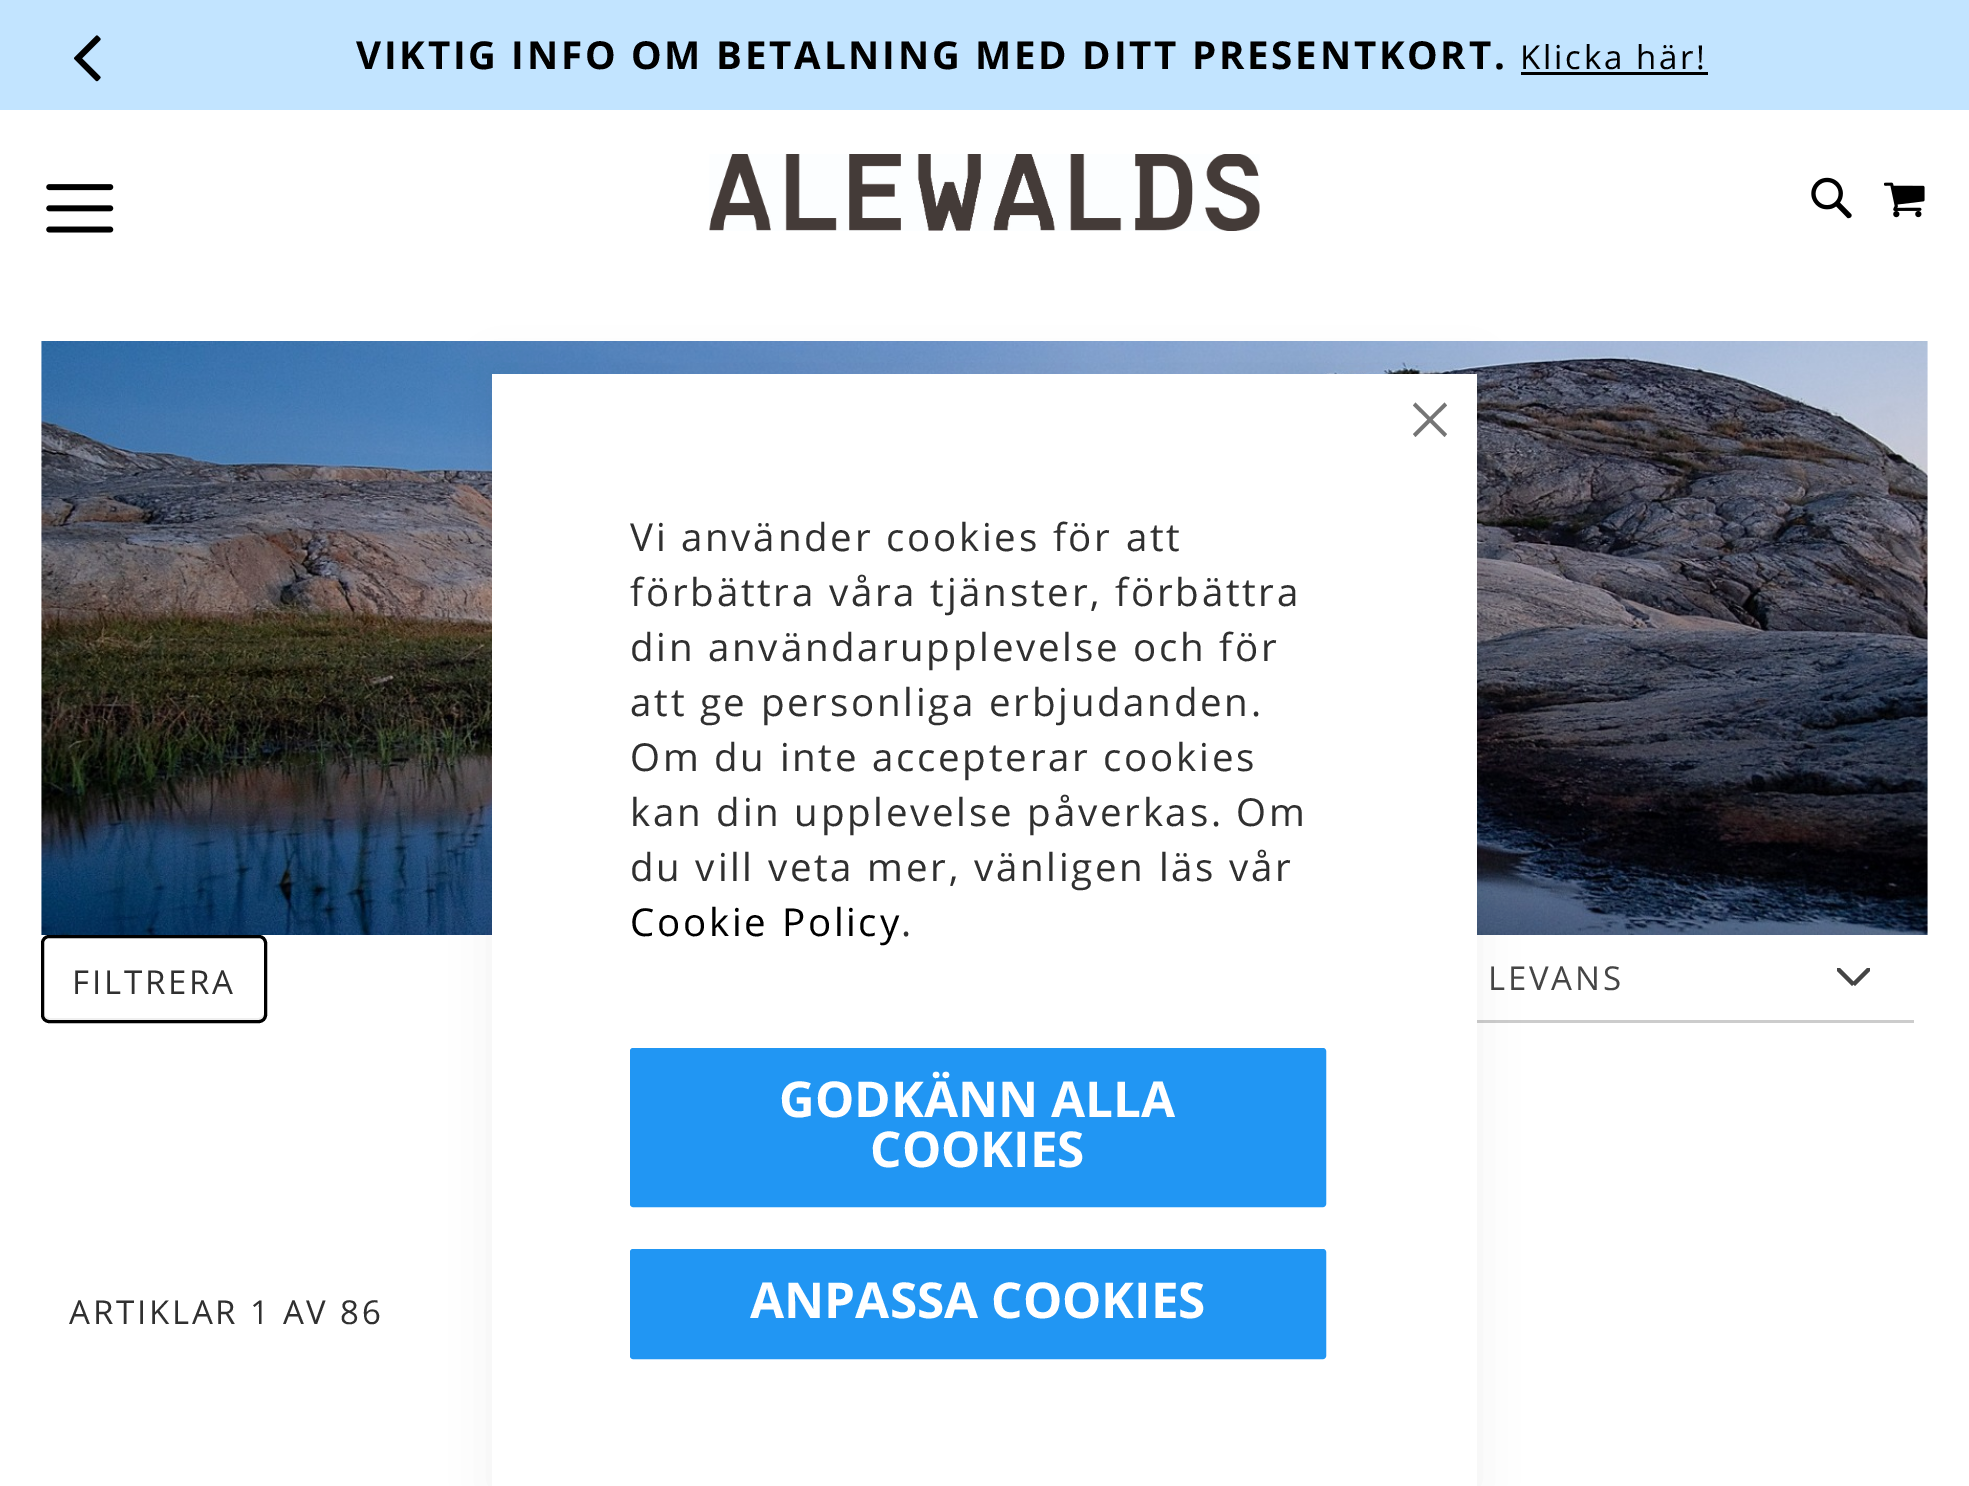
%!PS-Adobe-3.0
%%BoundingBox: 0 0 1969 1486
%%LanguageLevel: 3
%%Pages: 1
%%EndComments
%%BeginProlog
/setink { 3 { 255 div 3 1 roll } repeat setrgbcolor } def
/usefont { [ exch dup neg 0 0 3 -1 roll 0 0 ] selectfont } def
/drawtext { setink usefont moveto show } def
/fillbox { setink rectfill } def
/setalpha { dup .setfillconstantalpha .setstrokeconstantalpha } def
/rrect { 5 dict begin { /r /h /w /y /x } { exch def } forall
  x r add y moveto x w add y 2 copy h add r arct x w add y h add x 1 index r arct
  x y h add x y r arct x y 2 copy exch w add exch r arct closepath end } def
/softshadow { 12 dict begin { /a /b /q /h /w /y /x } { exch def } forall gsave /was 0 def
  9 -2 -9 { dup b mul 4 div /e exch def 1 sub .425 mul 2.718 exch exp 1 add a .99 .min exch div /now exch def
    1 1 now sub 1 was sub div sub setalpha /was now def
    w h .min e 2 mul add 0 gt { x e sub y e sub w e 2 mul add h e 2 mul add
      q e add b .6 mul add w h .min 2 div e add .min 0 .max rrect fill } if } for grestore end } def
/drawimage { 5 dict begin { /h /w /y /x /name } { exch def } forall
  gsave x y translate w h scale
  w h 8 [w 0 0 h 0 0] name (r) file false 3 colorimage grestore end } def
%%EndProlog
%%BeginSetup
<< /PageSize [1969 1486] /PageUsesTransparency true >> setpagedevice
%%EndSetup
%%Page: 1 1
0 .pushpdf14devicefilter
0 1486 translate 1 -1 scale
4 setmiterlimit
0 0 1969 1486 255 255 255 fillbox
0 0 1969 110 194 228 255 fillbox
(assets/img1.rgb) 74 35 27 47 drawimage
/OpenSans-Bold 38.5 usefont
0 0 0 setink
356 69 moveto 2.75 0 (VIKTIG INFO OM BETALNING MED DITT PRESENTKORT.) ashow
/OpenSans-Regular 33 usefont
1520 69 moveto 2.75 0 (Klicka här!) ashow
1521 72 187 3 0 0 0 fillbox
(assets/img2.rgb) 46 184 68 49 drawimage
(assets/img3.rgb) 709 154 551 77 drawimage
(assets/img4.rgb) 1811 177 41 42 drawimage
(assets/img5.rgb) 1884 182 41 36 drawimage
(assets/img6.rgb) 41 341 1887 594 drawimage
gsave
1837 968 33 22 rectclip
69 69 69 setink
4.1 setlinewidth
1837 968 moveto 1853.5 984.5 lineto 1870 968 moveto 1853.5 984.5 lineto stroke
grestore
1477 1020 437 3 204 204 204 fillbox
69 69 69 setink
1488 990 moveto 2.75 0 (LEVANS) ashow
48 48 48 setink
69 1324 moveto 2.75 0 (ARTIKLAR 1 AV 86) ashow
240 240 240 setink
44 1012 moveto 44 1014 lineto 44 1017 47 1020 50 1020 curveto 258 1020 lineto 261 1020 264 1017 264 1014 curveto 264 1012 lineto 264 1015 262 1018 258 1018 curveto 50 1018 lineto 46 1018 44 1015 44 1012 curveto closepath fill
0 0 0 setink
3 setlinewidth
42.5 936.5 223 85 6.5 rrect stroke
48 48 48 setink
72 994 moveto 2.75 0 (FILTRERA) ashow
0 0 0 setink
492 369 985 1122 0 25 0.06 softshadow
492 374 985 1112 255 255 255 fillbox
117 117 117 setink
1447 405.5 moveto 1444.5 402.5 lineto 1430 417 lineto 1415.5 402.5 lineto 1413 405.5 lineto 1427.5 419.5 lineto 1413 434 lineto 1415.5 437 lineto 1430 422.5 lineto 1444.5 437 lineto 1447 434 lineto 1432.5 419.5 lineto closepath fill
/OpenSans-Regular 38.5 usefont
48 48 48 setink
630 551 moveto 2.75 0 (Vi använder cookies för att) ashow
630 606 moveto 2.75 0 (förbättra våra tjänster, förbättra) ashow
630 661 moveto 2.75 0 (din användarupplevelse och för) ashow
630 716 moveto 2.75 0 (att ge personliga erbjudanden.) ashow
630 771 moveto 2.75 0 (Om du inte accepterar cookies) ashow
630 826 moveto 2.75 0 (kan din upplevelse påverkas. Om) ashow
630 881 moveto 2.75 0 (du vill veta mer, vänligen läs vår) ashow
0 0 0 setink
630 936 moveto 2.75 0 (Cookie Policy) ashow
48 48 48 setink
901 936 moveto 2.75 0 (.) ashow
33 150 243 setink
631.5 1049.5 693 156 1.5 rrect gsave fill grestore
stroke
(GODKÄNN ALLA) 779 1117 /OpenSans-Bold 49.5 255 255 255 drawtext
(COOKIES) 870 1167 /OpenSans-Bold 49.5 255 255 255 drawtext
33 150 243 setink
631.5 1250.5 693 107 1.5 rrect gsave fill grestore
stroke
(ANPASSA COOKIES) 750 1318 /OpenSans-Bold 49.5 255 255 255 drawtext
.poppdf14devicefilter showpage
%%EOF
